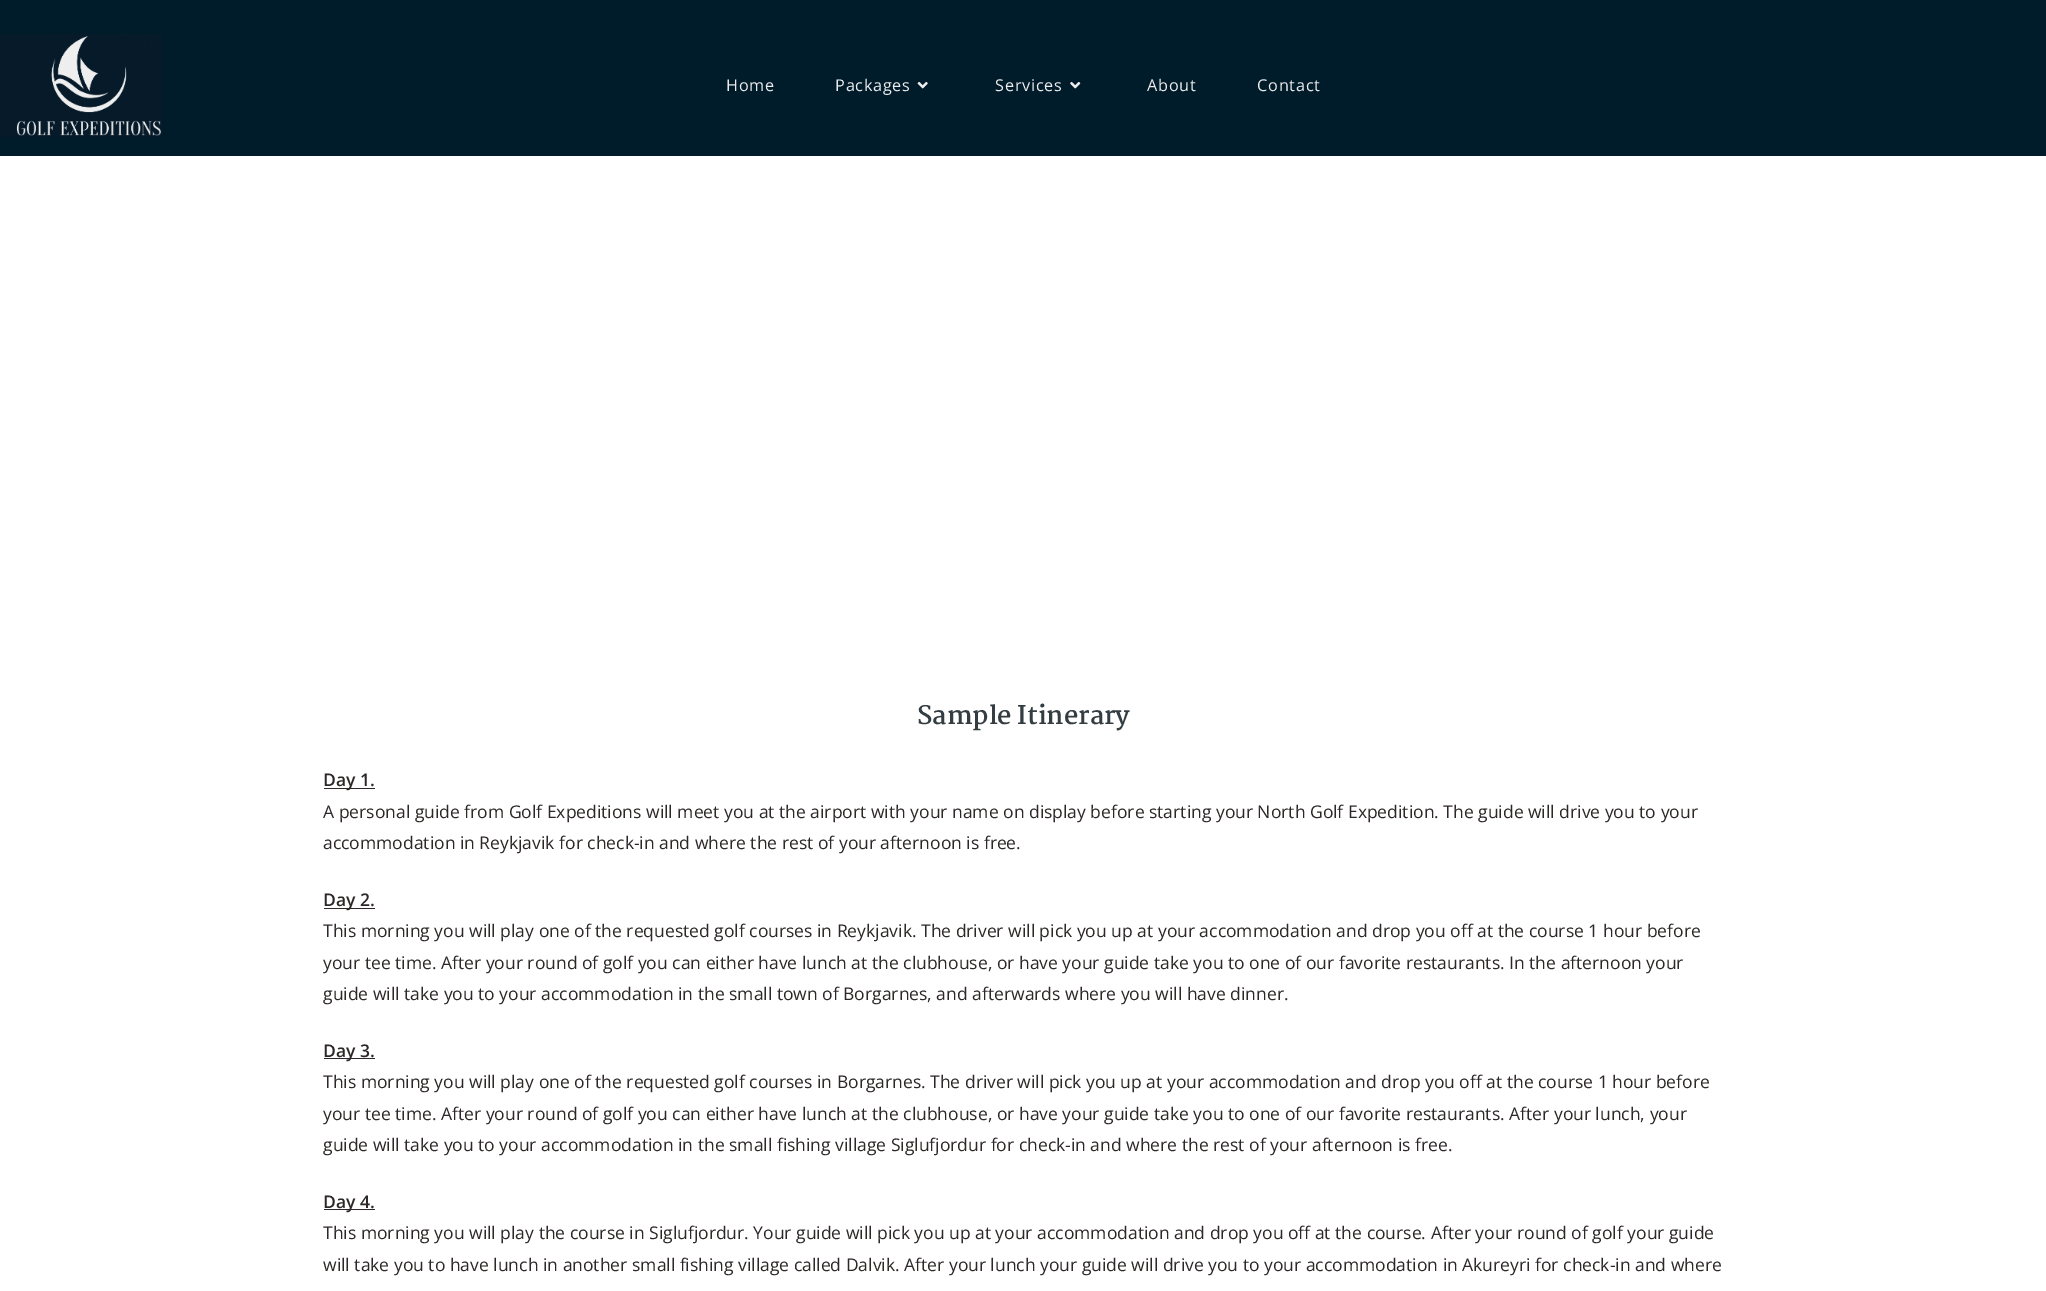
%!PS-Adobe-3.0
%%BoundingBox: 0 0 2046 1291
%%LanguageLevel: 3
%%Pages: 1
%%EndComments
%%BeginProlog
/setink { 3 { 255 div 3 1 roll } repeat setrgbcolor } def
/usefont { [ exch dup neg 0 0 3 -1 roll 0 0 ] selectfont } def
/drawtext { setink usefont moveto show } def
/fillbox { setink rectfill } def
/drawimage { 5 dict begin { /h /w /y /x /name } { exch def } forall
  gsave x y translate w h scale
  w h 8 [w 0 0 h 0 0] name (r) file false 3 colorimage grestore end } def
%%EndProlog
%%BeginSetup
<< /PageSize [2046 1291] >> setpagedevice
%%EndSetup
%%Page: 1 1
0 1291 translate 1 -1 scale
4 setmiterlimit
0 0 2046 1291 255 255 255 fillbox
0 0 2046 156 0 28 43 fillbox
(assets/img1.rgb) 0 34 162 103 drawimage
/OpenSans-Regular 16.25 usefont
237 237 237 setink
726 91 moveto 0.75 0 (Home) ashow
835 91 moveto 0.75 0 (Packages) ashow
(assets/img2.rgb) 917 81 11 8 drawimage
995 91 moveto 0.75 0 (Services) ashow
(assets/img3.rgb) 1070 81 11 8 drawimage
1147 91 moveto 0.75 0 (About) ashow
1257 91 moveto 0.75 0 (Contact) ashow
(Sample Itinerary) 917 724 /Martel-Bold 25 52 61 65 drawtext
324 788 51 1 45 39 39 fillbox
(Day 1.) 323 786 /OpenSans-SemiBold 17.5 45 39 39 drawtext
(A personal guide from Golf Expeditions will meet you at the airport with your name on display before starting your North Golf Expedition. The guide will drive you to your) 323 818 /OpenSans-Regular 17.5 45 39 39 drawtext
(accommodation in Reykjavik for check-in and where the rest of your afternoon is free.) 323 849 /OpenSans-Regular 17.5 45 39 39 drawtext
324 908 51 1 45 39 39 fillbox
(Day 2.) 323 906 /OpenSans-SemiBold 17.5 45 39 39 drawtext
(This morning you will play one of the requested golf courses in Reykjavik. The driver will pick you up at your accommodation and drop you off at the course 1 hour before) 323 937 /OpenSans-Regular 17.5 45 39 39 drawtext
(your tee time. After your round of golf you can either have lunch at the clubhouse, or have your guide take you to one of our favorite restaurants. In the afternoon your) 323 969 /OpenSans-Regular 17.5 45 39 39 drawtext
(guide will take you to your accommodation in the small town of Borgarnes, and afterwards where you will have dinner.) 323 1000 /OpenSans-Regular 17.5 45 39 39 drawtext
324 1058 51 1 45 39 39 fillbox
(Day 3.) 323 1057 /OpenSans-SemiBold 17.5 45 39 39 drawtext
(This morning you will play one of the requested golf courses in Borgarnes. The driver will pick you up at your accommodation and drop you off at the course 1 hour before) 323 1088 /OpenSans-Regular 17.5 45 39 39 drawtext
(your tee time. After your round of golf you can either have lunch at the clubhouse, or have your guide take you to one of our favorite restaurants. After your lunch, your) 323 1120 /OpenSans-Regular 17.5 45 39 39 drawtext
(guide will take you to your accommodation in the small fishing village Siglufjordur for check-in and where the rest of your afternoon is free.) 323 1151 /OpenSans-Regular 17.5 45 39 39 drawtext
324 1209 51 1 45 39 39 fillbox
(Day 4.) 323 1208 /OpenSans-SemiBold 17.5 45 39 39 drawtext
(This morning you will play the course in Siglufjordur. Your guide will pick you up at your accommodation and drop you off at the course. After your round of golf your guide) 323 1239 /OpenSans-Regular 17.5 45 39 39 drawtext
(will take you to have lunch in another small fishing village called Dalvik. After your lunch your guide will drive you to your accommodation in Akureyri for check-in and where) 323 1271 /OpenSans-Regular 17.5 45 39 39 drawtext
showpage
%%EOF
